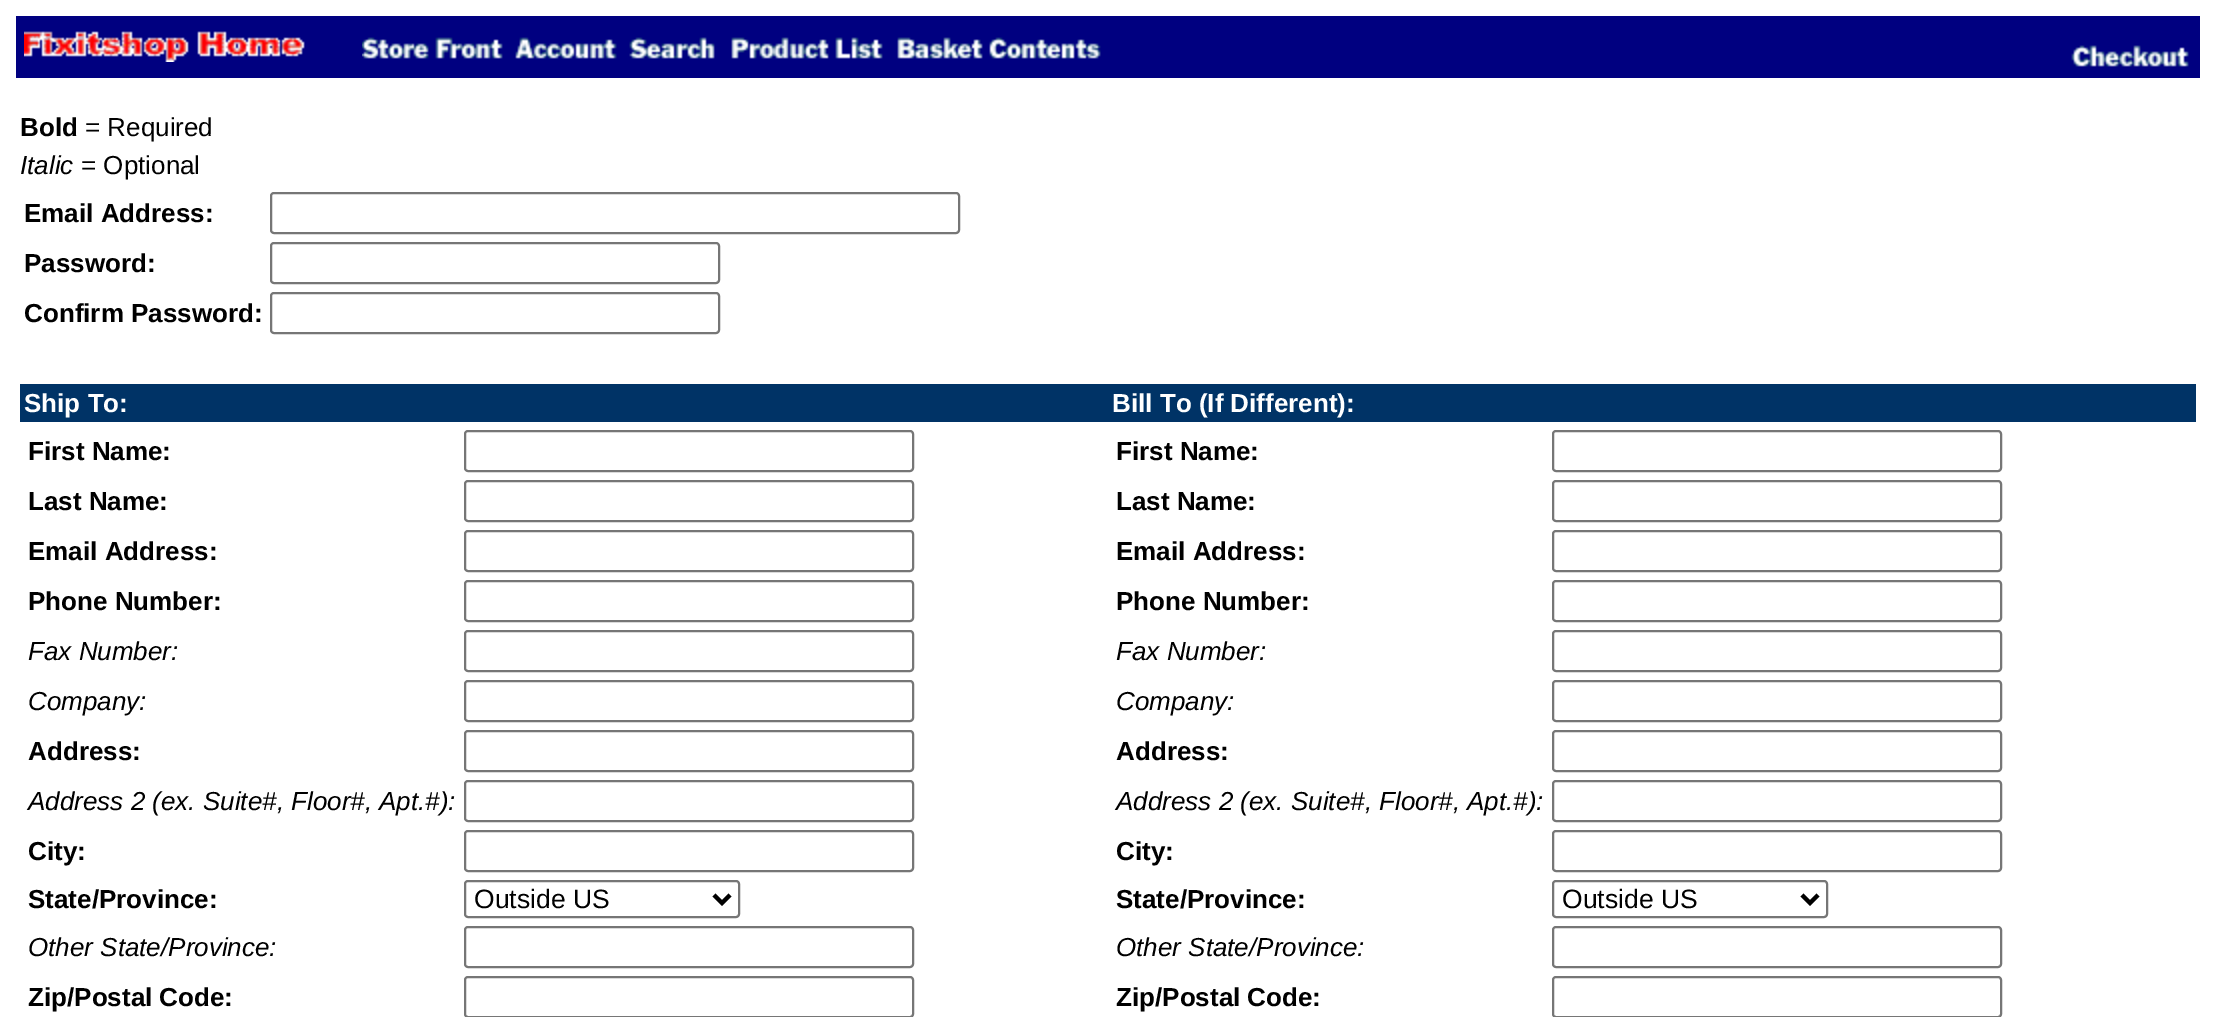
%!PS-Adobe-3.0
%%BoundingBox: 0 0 2216 1017
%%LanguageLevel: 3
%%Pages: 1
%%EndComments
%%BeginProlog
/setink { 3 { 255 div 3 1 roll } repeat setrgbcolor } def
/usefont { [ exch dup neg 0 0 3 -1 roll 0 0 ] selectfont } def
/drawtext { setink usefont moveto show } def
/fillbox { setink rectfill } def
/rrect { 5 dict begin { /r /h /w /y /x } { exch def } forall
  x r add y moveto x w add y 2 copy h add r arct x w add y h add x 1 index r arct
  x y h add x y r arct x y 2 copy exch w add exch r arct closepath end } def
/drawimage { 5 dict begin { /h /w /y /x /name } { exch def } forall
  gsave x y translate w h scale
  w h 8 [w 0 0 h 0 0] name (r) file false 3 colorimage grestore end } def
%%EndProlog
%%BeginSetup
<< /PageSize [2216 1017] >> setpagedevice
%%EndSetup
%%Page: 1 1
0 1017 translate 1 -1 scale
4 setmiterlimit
0 0 2216 1017 255 255 255 fillbox
16 16 2184 62 0 0 128 fillbox
(assets/img1.rgb) 24 31 281 31 drawimage
(assets/img2.rgb) 362 37 141 22 drawimage
(assets/img3.rgb) 515 37 102 22 drawimage
(assets/img4.rgb) 629 37 86 22 drawimage
(assets/img5.rgb) 731 37 152 22 drawimage
(assets/img6.rgb) 897 37 204 22 drawimage
(assets/img7.rgb) 2071 45 118 22 drawimage
(Bold) 20 136 /LiberationSans-Bold 26 0 0 0 drawtext
(= Required) 85 136 /LiberationSans-Regular 26 0 0 0 drawtext
(Italic) 20 174 /LiberationSans-Italic 26 0 0 0 drawtext
(= Optional) 81 174 /LiberationSans-Regular 26 0 0 0 drawtext
(Email Address:) 24 222 /LiberationSans-Bold 26 0 0 0 drawtext
118 118 118 setink
2 setlinewidth
271 193 688 40 3 rrect stroke
(Password:) 24 272 /LiberationSans-Bold 26 0 0 0 drawtext
118 118 118 setink
271 243 448 40 3 rrect stroke
(Confirm Password:) 24 322 /LiberationSans-Bold 26 0 0 0 drawtext
118 118 118 setink
271 293 448 40 3 rrect stroke
20 384 2176 38 0 51 102 fillbox
(Ship To:) 24 412 /LiberationSans-Bold 26 255 255 255 drawtext
(Bill To \(If Different\):) 1112 412 /LiberationSans-Bold 26 255 255 255 drawtext
(First Name:) 28 460 /LiberationSans-Bold 26 0 0 0 drawtext
118 118 118 setink
465 431 448 40 3 rrect stroke
(Last Name:) 28 510 /LiberationSans-Bold 26 0 0 0 drawtext
118 118 118 setink
465 481 448 40 3 rrect stroke
(Email Address:) 28 560 /LiberationSans-Bold 26 0 0 0 drawtext
118 118 118 setink
465 531 448 40 3 rrect stroke
(Phone Number:) 28 610 /LiberationSans-Bold 26 0 0 0 drawtext
118 118 118 setink
465 581 448 40 3 rrect stroke
(Fax Number:) 28 660 /LiberationSans-Italic 26 0 0 0 drawtext
118 118 118 setink
465 631 448 40 3 rrect stroke
(Company:) 28 710 /LiberationSans-Italic 26 0 0 0 drawtext
118 118 118 setink
465 681 448 40 3 rrect stroke
(Address:) 28 760 /LiberationSans-Bold 26 0 0 0 drawtext
118 118 118 setink
465 731 448 40 3 rrect stroke
(Address 2 \(ex. Suite#, Floor#, Apt.#\):) 28 810 /LiberationSans-Italic 26 0 0 0 drawtext
118 118 118 setink
465 781 448 40 3 rrect stroke
(City:) 28 860 /LiberationSans-Bold 26 0 0 0 drawtext
118 118 118 setink
465 831 448 40 3 rrect stroke
(State/Province:) 28 908 /LiberationSans-Bold 26 0 0 0 drawtext
118 118 118 setink
465 881 274 36 3 rrect stroke
0 0 0 setink
4 setlinewidth
714 895 moveto 722 903 lineto 730 895 lineto stroke
(Outside US) 474 908 /LiberationSans-Regular 26.5 0 0 0 drawtext
(Other State/Province:) 28 956 /LiberationSans-Italic 26 0 0 0 drawtext
118 118 118 setink
2 setlinewidth
465 927 448 40 3 rrect stroke
(Zip/Postal Code:) 28 1006 /LiberationSans-Bold 26 0 0 0 drawtext
118 118 118 setink
465 977 448 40 3 rrect stroke
(First Name:) 1116 460 /LiberationSans-Bold 26 0 0 0 drawtext
118 118 118 setink
1553 431 448 40 3 rrect stroke
(Last Name:) 1116 510 /LiberationSans-Bold 26 0 0 0 drawtext
118 118 118 setink
1553 481 448 40 3 rrect stroke
(Email Address:) 1116 560 /LiberationSans-Bold 26 0 0 0 drawtext
118 118 118 setink
1553 531 448 40 3 rrect stroke
(Phone Number:) 1116 610 /LiberationSans-Bold 26 0 0 0 drawtext
118 118 118 setink
1553 581 448 40 3 rrect stroke
(Fax Number:) 1116 660 /LiberationSans-Italic 26 0 0 0 drawtext
118 118 118 setink
1553 631 448 40 3 rrect stroke
(Company:) 1116 710 /LiberationSans-Italic 26 0 0 0 drawtext
118 118 118 setink
1553 681 448 40 3 rrect stroke
(Address:) 1116 760 /LiberationSans-Bold 26 0 0 0 drawtext
118 118 118 setink
1553 731 448 40 3 rrect stroke
(Address 2 \(ex. Suite#, Floor#, Apt.#\):) 1116 810 /LiberationSans-Italic 26 0 0 0 drawtext
118 118 118 setink
1553 781 448 40 3 rrect stroke
(City:) 1116 860 /LiberationSans-Bold 26 0 0 0 drawtext
118 118 118 setink
1553 831 448 40 3 rrect stroke
(State/Province:) 1116 908 /LiberationSans-Bold 26 0 0 0 drawtext
118 118 118 setink
1553 881 274 36 3 rrect stroke
0 0 0 setink
4 setlinewidth
1802 895 moveto 1810 903 lineto 1818 895 lineto stroke
(Outside US) 1562 908 /LiberationSans-Regular 26.5 0 0 0 drawtext
(Other State/Province:) 1116 956 /LiberationSans-Italic 26 0 0 0 drawtext
118 118 118 setink
2 setlinewidth
1553 927 448 40 3 rrect stroke
(Zip/Postal Code:) 1116 1006 /LiberationSans-Bold 26 0 0 0 drawtext
118 118 118 setink
1553 977 448 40 3 rrect stroke
showpage
%%EOF
